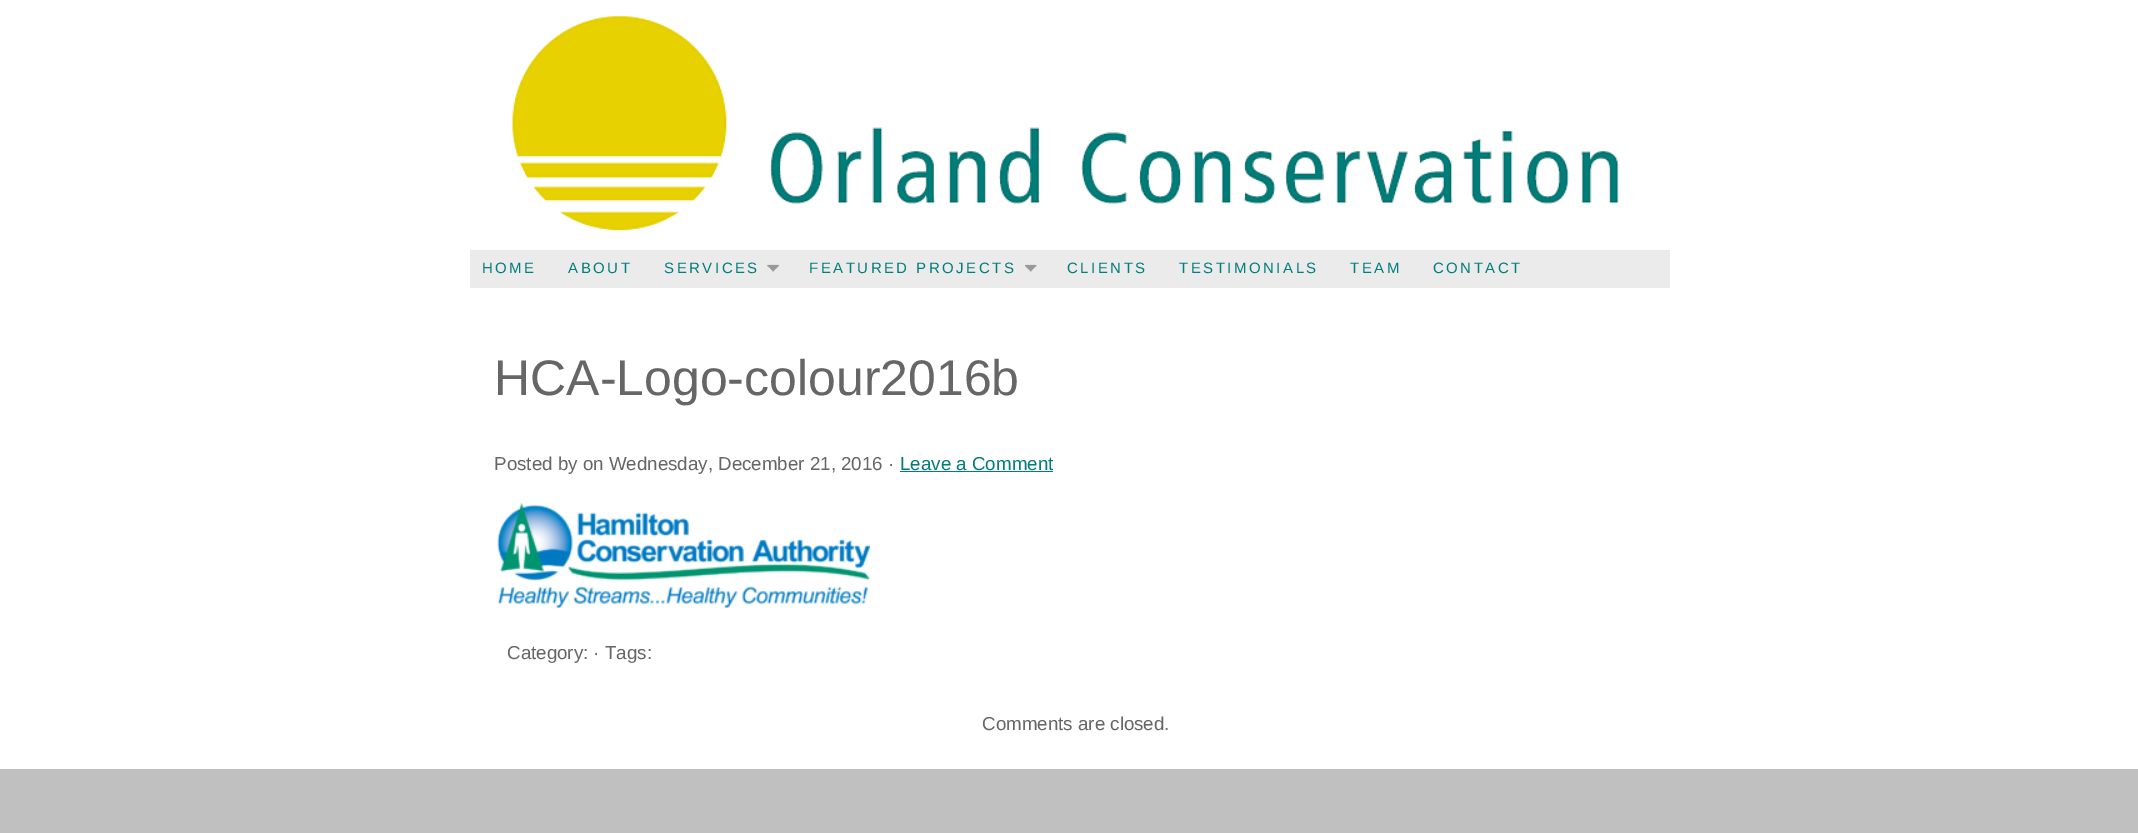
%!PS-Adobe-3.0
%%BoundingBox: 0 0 2138 833
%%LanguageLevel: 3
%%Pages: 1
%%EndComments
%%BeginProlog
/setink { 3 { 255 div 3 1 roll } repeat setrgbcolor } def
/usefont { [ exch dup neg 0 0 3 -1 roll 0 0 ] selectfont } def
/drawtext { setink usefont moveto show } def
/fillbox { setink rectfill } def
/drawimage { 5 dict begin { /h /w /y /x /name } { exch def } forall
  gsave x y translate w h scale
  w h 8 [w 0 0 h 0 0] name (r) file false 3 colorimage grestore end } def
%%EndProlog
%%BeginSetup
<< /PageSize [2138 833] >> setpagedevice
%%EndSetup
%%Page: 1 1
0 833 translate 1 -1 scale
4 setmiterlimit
0 0 2138 833 255 255 255 fillbox
(assets/img1.rgb) 512 16 1107 215 drawimage
470 250 1200 38 235 235 235 fillbox
/LiberationSans-Regular 15 usefont
0 126 122 setink
482 273 moveto 2.5 0 (HOME) ashow
568 273 moveto 2.5 0 (ABOUT) ashow
664 273 moveto 2.5 0 (SERVICES) ashow
(assets/img2.rgb) 767 264 12 8 drawimage
(assets/img3.rgb) 767 264 12 8 drawimage
809 273 moveto 2.5 0 (FEATURED PROJECTS) ashow
(assets/img4.rgb) 1025 264 12 8 drawimage
(assets/img5.rgb) 1025 264 12 8 drawimage
1067 273 moveto 2.5 0 (CLIENTS) ashow
1179 273 moveto 2.5 0 (TESTIMONIALS) ashow
1350 273 moveto 2.5 0 (TEAM) ashow
1433 273 moveto 2.5 0 (CONTACT) ashow
(HCA-Logo-colour2016b) 494 395 /LiberationSans-Regular 50 102 102 102 drawtext
(Posted by on Wednesday, December 21, 2016 ·) 494 470 /LiberationSans-Regular 18.75 102 102 102 drawtext
(Leave a Comment) 900 470 /LiberationSans-Regular 18.75 0 126 122 drawtext
900 471 153 1 0 126 122 fillbox
(assets/img6.rgb) 497 502 373 106 drawimage
(Category: · Tags:) 507 659 /LiberationSans-Regular 18.75 102 102 102 drawtext
(Comments are closed.) 982 730 /LiberationSans-Regular 18.75 102 102 102 drawtext
0 769 2138 64 192 192 192 fillbox
showpage
%%EOF
